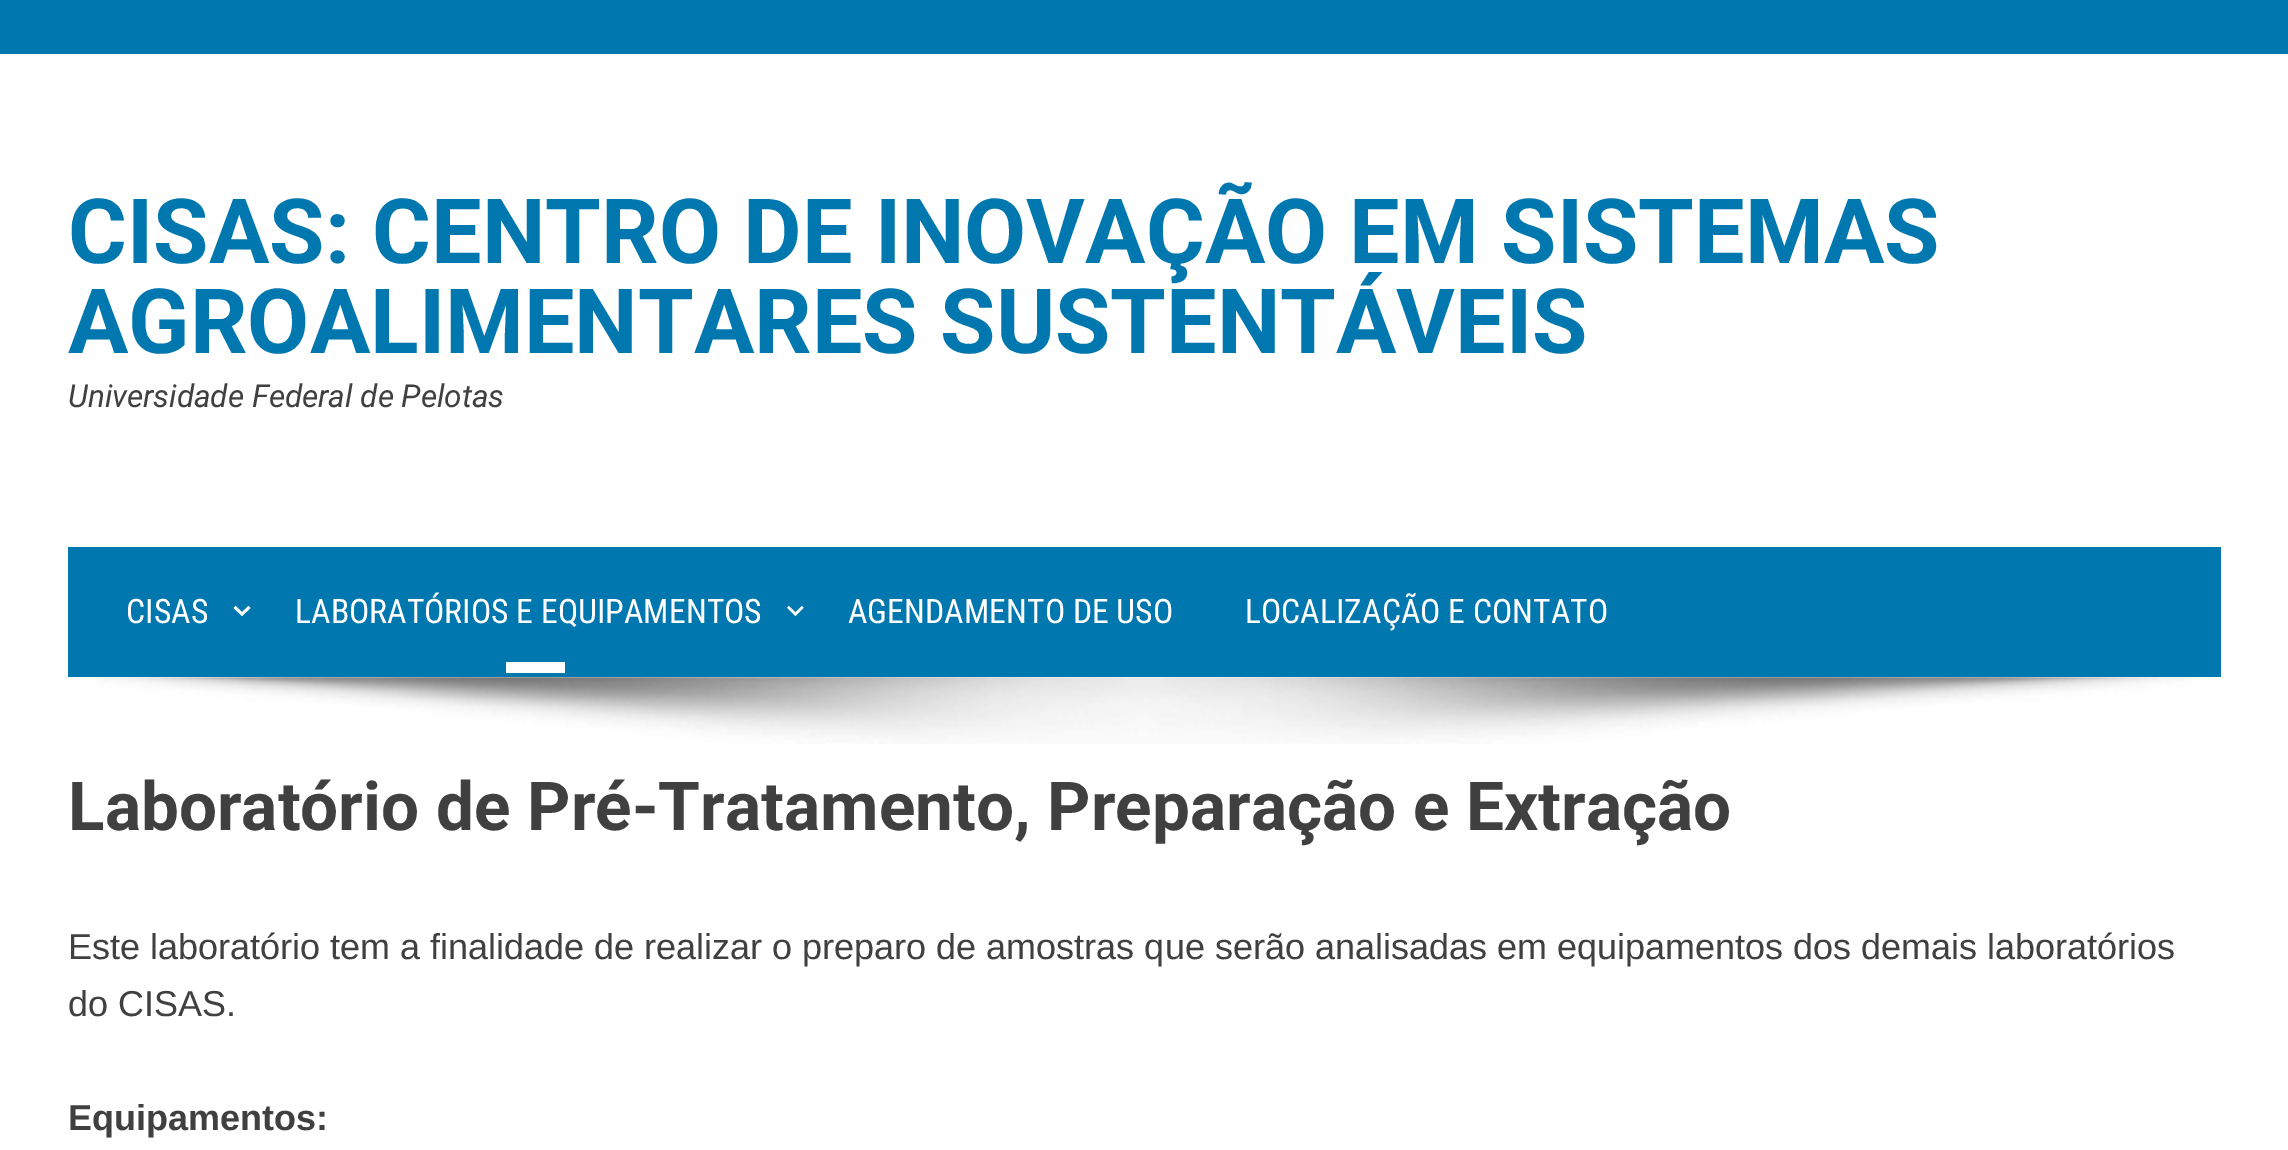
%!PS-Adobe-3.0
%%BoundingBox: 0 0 2288 1150
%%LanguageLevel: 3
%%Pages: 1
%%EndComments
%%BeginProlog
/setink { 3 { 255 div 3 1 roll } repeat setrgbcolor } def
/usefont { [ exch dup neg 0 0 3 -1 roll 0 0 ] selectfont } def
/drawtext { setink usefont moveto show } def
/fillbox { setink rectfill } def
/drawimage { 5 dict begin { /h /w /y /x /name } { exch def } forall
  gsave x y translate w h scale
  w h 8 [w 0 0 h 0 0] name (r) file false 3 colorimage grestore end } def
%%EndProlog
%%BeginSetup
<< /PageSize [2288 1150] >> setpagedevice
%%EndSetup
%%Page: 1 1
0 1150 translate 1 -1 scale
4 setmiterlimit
0 0 2288 1150 255 255 255 fillbox
0 0 2288 54 0 120 175 fillbox
(CISAS: CENTRO DE INOVAÇÃO EM SISTEMAS) 68 263 /Roboto-Bold 90 0 120 175 drawtext
(AGROALIMENTARES SUSTENTÁVEIS) 68 353 /Roboto-Bold 90 0 120 175 drawtext
(Universidade Federal de Pelotas) 68 407 /Roboto-Italic 31.5 64 64 64 drawtext
68 547 2153 130 0 120 175 fillbox
(CISAS) 126 623 /RobotoCondensed-Regular 33.75 255 255 255 drawtext
235.5 606 moveto 242 612 lineto 248.5 606 lineto 250.5 608 lineto 242 616 lineto 233.5 608 lineto closepath fill
(LABORATÓRIOS E EQUIPAMENTOS) 295 623 /RobotoCondensed-Regular 33.75 255 255 255 drawtext
(assets/img1.rgb) 787 605 17 12 drawimage
506 662 59 11 255 255 255 fillbox
(AGENDAMENTO DE USO) 848 623 /RobotoCondensed-Regular 33.75 255 255 255 drawtext
(LOCALIZAÇÃO E CONTATO) 1245 623 /RobotoCondensed-Regular 33.75 255 255 255 drawtext
(assets/img2.rgb) 96 677 2097 67 drawimage
(Laboratório de Pré-Tratamento, Preparação e Extração) 68 830 /Roboto-Bold 67.5 64 64 64 drawtext
(Este laboratório tem a finalidade de realizar o preparo de amostras que serão analisadas em equipamentos dos demais laboratórios) 68 959 /LiberationSans-Regular 36 64 64 64 drawtext
(do CISAS.) 68 1016 /LiberationSans-Regular 36 64 64 64 drawtext
(Equipamentos:) 68 1130 /LiberationSans-Bold 36 64 64 64 drawtext
showpage
%%EOF
